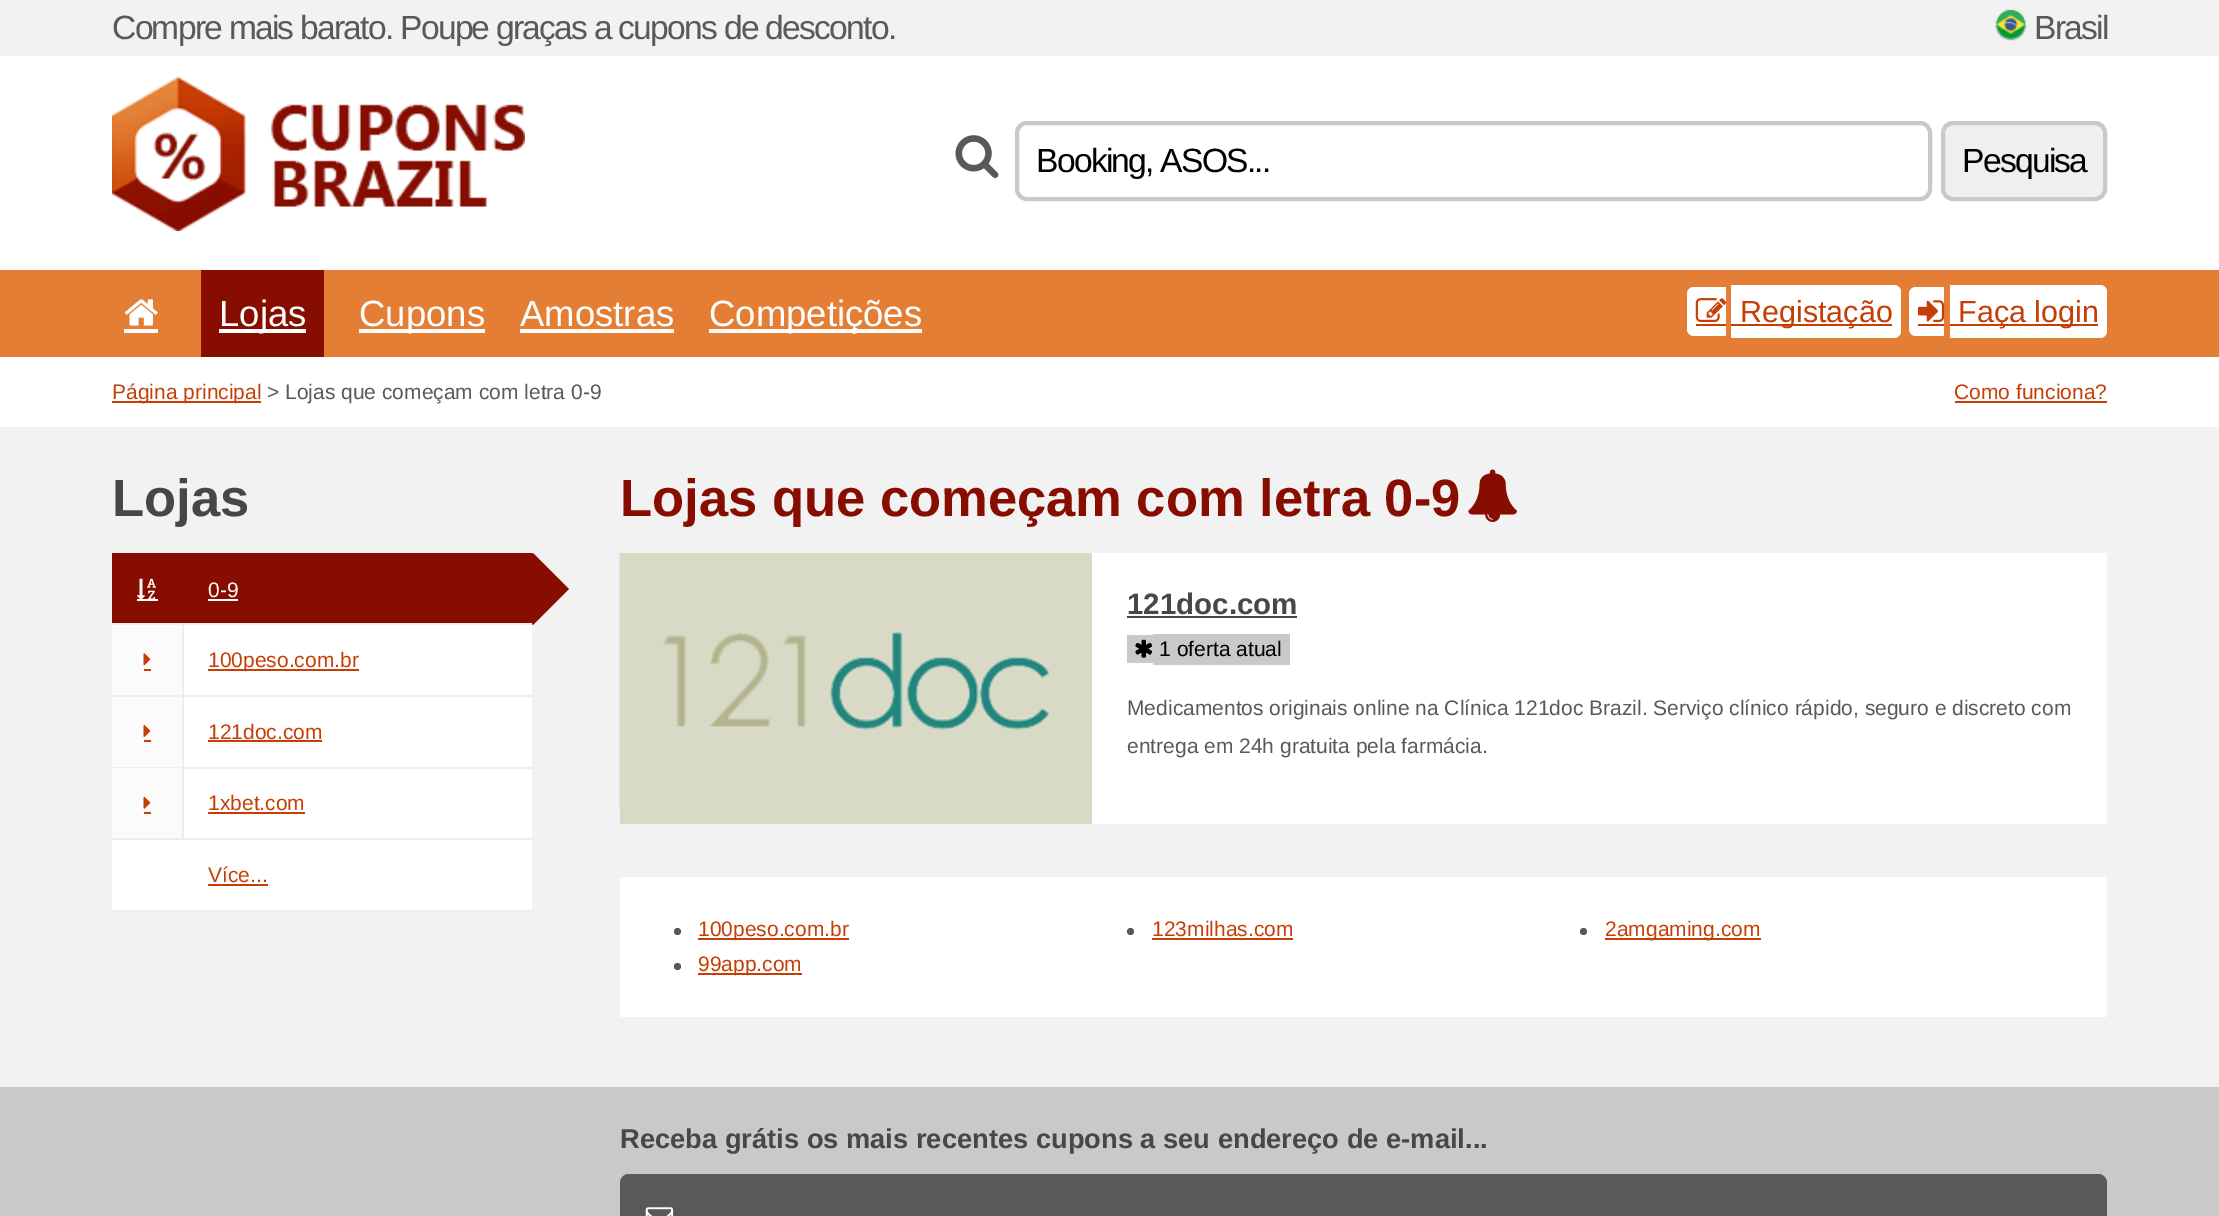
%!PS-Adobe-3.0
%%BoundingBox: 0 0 2219 1216
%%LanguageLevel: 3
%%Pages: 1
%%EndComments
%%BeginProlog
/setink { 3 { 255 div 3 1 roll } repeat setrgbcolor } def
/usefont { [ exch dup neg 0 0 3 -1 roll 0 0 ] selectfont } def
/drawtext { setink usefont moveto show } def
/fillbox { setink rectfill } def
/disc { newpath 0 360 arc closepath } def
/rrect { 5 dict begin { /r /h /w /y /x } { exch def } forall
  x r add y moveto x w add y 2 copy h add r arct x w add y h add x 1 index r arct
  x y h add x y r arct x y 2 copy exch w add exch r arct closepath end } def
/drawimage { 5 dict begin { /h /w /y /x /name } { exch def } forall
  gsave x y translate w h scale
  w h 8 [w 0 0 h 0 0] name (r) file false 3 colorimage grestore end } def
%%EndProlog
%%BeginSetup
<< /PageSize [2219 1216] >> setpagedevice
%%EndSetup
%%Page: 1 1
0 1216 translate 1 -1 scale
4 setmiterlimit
0 0 2219 1216 242 242 242 fillbox
/LiberationSans-Regular 33.6 usefont
89 89 89 setink
112 39 moveto -1.75 0 (Compre mais barato. Poupe graças a cupons de desconto.) ashow
(assets/img1.rgb) 1995 8 32 33 drawimage
2034 39 moveto -1.75 0 (Brasil) ashow
0 56 2219 214 255 255 255 fillbox
(assets/img2.rgb) 112 77 413 154 drawimage
(assets/img3.rgb) 955 135 44 44 drawimage
201 201 201 setink
4 setlinewidth
1017 123 913 76 10 rrect stroke
0 0 0 setink
1036 172 moveto -1.75 0 (Booking, ASOS...) ashow
239 239 239 setink
1943 123 162 76 10 rrect gsave fill grestore
201 201 201 setink
stroke
0 0 0 setink
1962 172 moveto -1.75 0 (Pesquisa) ashow
0 270 2219 87 228 126 52 fillbox
(assets/img4.rgb) 124 299 34 27 drawimage
124 329 34 4 255 255 255 fillbox
201 270 123 87 135 13 0 fillbox
219 329 87 4 255 255 255 fillbox
(Lojas) 219 326 /LiberationSans-Regular 36.5 255 255 255 drawtext
359 329 126 4 255 255 255 fillbox
(Cupons) 359 326 /LiberationSans-Regular 36.5 255 255 255 drawtext
(Amostras) 520 326 /LiberationSans-Regular 36.5 255 255 255 drawtext
520 329 154 4 255 255 255 fillbox
709 329 213 4 255 255 255 fillbox
(Competições) 709 326 /LiberationSans-Regular 36.5 255 255 255 drawtext
1694 287 moveto 1726 287 lineto 1726 336 lineto 1694 336 lineto 1690 336 1687 333 1687 329 curveto 1687 294 lineto 1687 290 1690 287 1694 287 curveto closepath fill
(assets/img5.rgb) 1695 298 31 24 drawimage
1731 285 moveto 1894 285 lineto 1898 285 1901 288 1901 292 curveto 1901 331 lineto 1901 335 1898 338 1894 338 curveto 1731 338 lineto closepath fill
1731 324 161 2 198 62 5 fillbox
(Registação) 1740 322 /LiberationSans-Regular 30.5 198 62 5 drawtext
1696 324 30 2 198 62 5 fillbox
255 255 255 setink
1916 287 moveto 1944 287 lineto 1944 336 lineto 1916 336 lineto 1912 336 1909 333 1909 329 curveto 1909 294 lineto 1909 290 1912 287 1916 287 curveto closepath fill
(assets/img6.rgb) 1918 300 27 22 drawimage
1950 285 moveto 2100 285 lineto 2104 285 2107 288 2107 292 curveto 2107 331 lineto 2107 335 2104 338 2100 338 curveto 1950 338 lineto closepath fill
1950 324 148 2 198 62 5 fillbox
(Faça login) 1958 322 /LiberationSans-Regular 30.5 198 62 5 drawtext
1918 324 26 2 198 62 5 fillbox
0 357 2219 70 255 255 255 fillbox
112 401 149 2 198 62 5 fillbox
(Página principal) 112 399 /LiberationSans-Regular 21 198 62 5 drawtext
(> Lojas que começam com letra 0-9) 267 399 /LiberationSans-Regular 21 89 89 89 drawtext
(Como funciona?) 1954 399 /LiberationSans-Regular 21 198 62 5 drawtext
1955 401 152 2 198 62 5 fillbox
(Lojas) 112 516 /LiberationSans-Bold 52.5 71 71 71 drawtext
112 553 420 70 135 13 0 fillbox
(assets/img7.rgb) 136 578 20 21 drawimage
137 599 21 2 255 255 255 fillbox
(0-9) 208 597 /LiberationSans-Regular 21 255 255 255 drawtext
208 599 30 2 255 255 255 fillbox
135 13 0 setink
533 553 moveto 569 589 lineto 533 625 lineto 497 589 lineto closepath fill
184 625 348 70 255 255 255 fillbox
112 623 420 2 237 237 237 fillbox
112 625 70 70 251 251 251 fillbox
182 625 2 70 237 237 237 fillbox
(assets/img8.rgb) 143 653 8 13 drawimage
144 669 7 2 198 62 5 fillbox
208 669 151 2 198 62 5 fillbox
(100peso.com.br) 208 667 /LiberationSans-Regular 21 198 62 5 drawtext
184 697 348 70 255 255 255 fillbox
112 695 420 2 237 237 237 fillbox
112 697 70 70 251 251 251 fillbox
182 697 2 70 237 237 237 fillbox
(assets/img9.rgb) 143 725 8 12 drawimage
144 740 7 2 198 62 5 fillbox
(121doc.com) 208 739 /LiberationSans-Regular 21 198 62 5 drawtext
208 740 114 2 198 62 5 fillbox
184 769 348 69 255 255 255 fillbox
112 767 420 2 237 237 237 fillbox
112 768 70 70 251 251 251 fillbox
182 768 2 70 237 237 237 fillbox
(assets/img10.rgb) 143 796 8 13 drawimage
144 812 7 2 198 62 5 fillbox
(1xbet.com) 208 810 /LiberationSans-Regular 21 198 62 5 drawtext
208 812 97 2 198 62 5 fillbox
112 840 420 70 255 255 255 fillbox
112 838 420 2 237 237 237 fillbox
112 910 420 2 237 237 237 fillbox
(Více...) 208 882 /LiberationSans-Regular 21 198 62 5 drawtext
208 884 60 2 198 62 5 fillbox
(Lojas que começam com letra 0-9) 620 516 /LiberationSans-Bold 52.5 135 13 0 drawtext
(assets/img11.rgb) 1468 469 49 53 drawimage
620 553 472 271 216 218 198 fillbox
(assets/img12.rgb) 619 553 430 256 drawimage
1092 553 1015 271 255 255 255 fillbox
(121doc.com) 1127 614 /LiberationSans-Bold 29.5 71 71 71 drawtext
1127 616 170 2 71 71 71 fillbox
1127 635 26 28 201 201 201 fillbox
(assets/img13.rgb) 1135 639 18 19 drawimage
1153 634 137 31 201 201 201 fillbox
(1 oferta atual) 1159 656 /LiberationSans-Regular 21 0 0 0 drawtext
(Medicamentos originais online na Clínica 121doc Brazil. Serviço clínico rápido, seguro e discreto com) 1127 715 /LiberationSans-Regular 21 89 89 89 drawtext
(entrega em 24h gratuita pela farmácia.) 1127 753 /LiberationSans-Regular 21 89 89 89 drawtext
620 877 1487 140 255 255 255 fillbox
89 89 89 setink
677.5 931.5 3.5 disc fill
698 938 151 2 198 62 5 fillbox
(100peso.com.br) 698 936 /LiberationSans-Regular 21 198 62 5 drawtext
89 89 89 setink
1130.5 931.5 3.5 disc fill
(123milhas.com) 1152 936 /LiberationSans-Regular 21 198 62 5 drawtext
1152 938 141 2 198 62 5 fillbox
89 89 89 setink
1583.5 931.5 3.5 disc fill
1605 938 156 2 198 62 5 fillbox
(2amgaming.com) 1605 936 /LiberationSans-Regular 21 198 62 5 drawtext
89 89 89 setink
677.5 966.5 3.5 disc fill
698 973 104 2 198 62 5 fillbox
(99app.com) 698 971 /LiberationSans-Regular 21 198 62 5 drawtext
0 1087 2219 129 201 201 201 fillbox
(Receba grátis os mais recentes cupons a seu endereço de e-mail...) 620 1148 /LiberationSans-Bold 27.3 71 71 71 drawtext
89 89 89 setink
620 1174 1487 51 9 rrect fill
(assets/img14.rgb) 645 1207 29 9 drawimage
showpage
%%EOF
